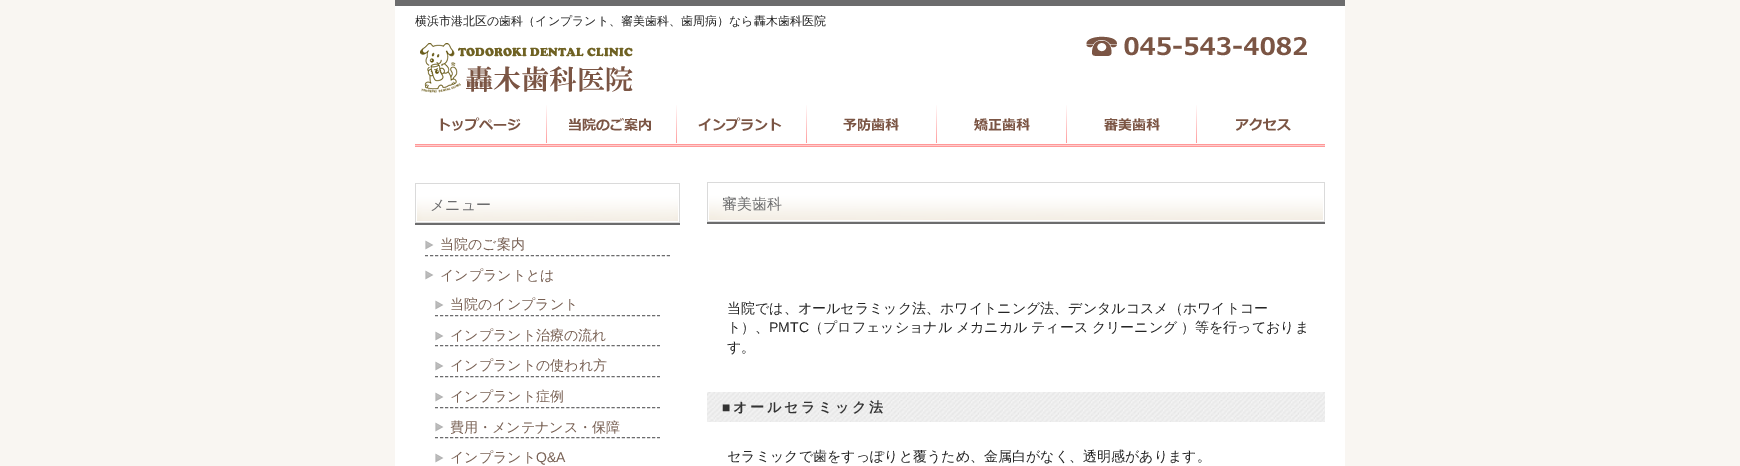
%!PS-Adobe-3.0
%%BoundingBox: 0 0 1740 466
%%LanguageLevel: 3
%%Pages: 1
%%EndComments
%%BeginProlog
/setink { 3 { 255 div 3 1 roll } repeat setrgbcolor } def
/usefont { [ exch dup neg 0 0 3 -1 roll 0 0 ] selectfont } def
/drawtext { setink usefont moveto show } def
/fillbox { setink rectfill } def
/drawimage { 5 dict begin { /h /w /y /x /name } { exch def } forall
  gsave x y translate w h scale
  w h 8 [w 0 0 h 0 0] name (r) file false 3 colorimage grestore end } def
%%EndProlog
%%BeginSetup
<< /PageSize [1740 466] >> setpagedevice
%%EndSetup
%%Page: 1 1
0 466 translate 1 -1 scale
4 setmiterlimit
0 0 1740 466 249 246 242 fillbox
395 6 950 460 255 255 255 fillbox
395 0 950 6 108 108 109 fillbox
(assets/img1.rgb) 1086 36 221 20 drawimage
(横浜市港北区の歯科（インプラント、審美歯科、歯周病）なら轟木歯科医院) 415 25 /WenQuanYiZenHei-Medium 12 37 37 37 drawtext
(assets/img2.rgb) 420 43 213 50 drawimage
(assets/img3.rgb) 415 105 910 42 drawimage
415 223 265 2 108 108 109 fillbox
(assets/img4.rgb) 415 183 265 40 drawimage
(メニュー) 430 210 /WenQuanYiZenHei-Medium 15 108 108 109 drawtext
[3 2.04] 0 setdash
425 255.5 moveto 670 255.5 lineto stroke
(assets/img5.rgb) 425 240 9 10 drawimage
(当院のご案内) 440 249 /WenQuanYiZenHei-Medium 14 120 96 83 drawtext
(assets/img5.rgb) 425 270 9 10 drawimage
(インプラントとは) 440 280 /WenQuanYiZenHei-Medium 14 120 96 83 drawtext
108 108 109 setink
[3 2.05] 0 setdash
435 315.5 moveto 660 315.5 lineto stroke
(assets/img5.rgb) 435 300 9 10 drawimage
(当院のインプラント) 450 309 /WenQuanYiZenHei-Medium 14 120 96 83 drawtext
108 108 109 setink
435 345.5 moveto 660 345.5 lineto stroke
(assets/img5.rgb) 435 331 9 10 drawimage
(インプラント治療の流れ) 450 340 /WenQuanYiZenHei-Medium 14 120 96 83 drawtext
108 108 109 setink
435 376.5 moveto 660 376.5 lineto stroke
(assets/img5.rgb) 435 361 9 10 drawimage
(インプラントの使われ方) 450 370 /WenQuanYiZenHei-Medium 14 120 96 83 drawtext
108 108 109 setink
435 407.5 moveto 660 407.5 lineto stroke
(assets/img5.rgb) 435 392 9 10 drawimage
(インプラント症例) 450 401 /WenQuanYiZenHei-Medium 14 120 96 83 drawtext
108 108 109 setink
435 437.5 moveto 660 437.5 lineto stroke
(assets/img5.rgb) 435 422 9 10 drawimage
(費用・メンテナンス・保障) 450 432 /WenQuanYiZenHei-Medium 14 120 96 83 drawtext
(assets/img5.rgb) 435 453 9 10 drawimage
(インプラント) 450 462 /WenQuanYiZenHei-Medium 14 120 96 83 drawtext
(Q&A) 536 462 /LiberationSans-Regular 14 120 96 83 drawtext
707 222 618 2 108 108 109 fillbox
(assets/img6.rgb) 707 182 618 40 drawimage
(審美歯科) 722 209 /WenQuanYiZenHei-Medium 15 108 108 109 drawtext
(当院では、オールセラミック法、ホワイトニング法、デンタルコスメ（ホワイトコー) 727 313 /WenQuanYiZenHei-Medium 14 37 37 37 drawtext
(ト）、) 727 332 /WenQuanYiZenHei-Medium 14 37 37 37 drawtext
(PMTC) 769 332 /LiberationSans-Regular 14 37 37 37 drawtext
/WenQuanYiZenHei-Medium 14 usefont
809 332 moveto -0.5 0 32 (（プロフェッショナル メカニカル ティース クリーニング ）等を行っておりま) widthshow
(す。) 727 352 /WenQuanYiZenHei-Medium 14 37 37 37 drawtext
(assets/img7.rgb) 707 392 618 30 drawimage
/LiberationSans-Bold 14 usefont
51 51 51 setink
722 412 moveto 2.75 0 (■) ashow
/WenQuanYiZenHei-Bold 14 usefont
733 412 moveto 2.75 0 (オールセラミック法) ashow
(セラミックで歯をすっぽりと覆うため、金属白がなく、透明感があります。) 727 461 /WenQuanYiZenHei-Medium 14 37 37 37 drawtext
showpage
%%EOF
